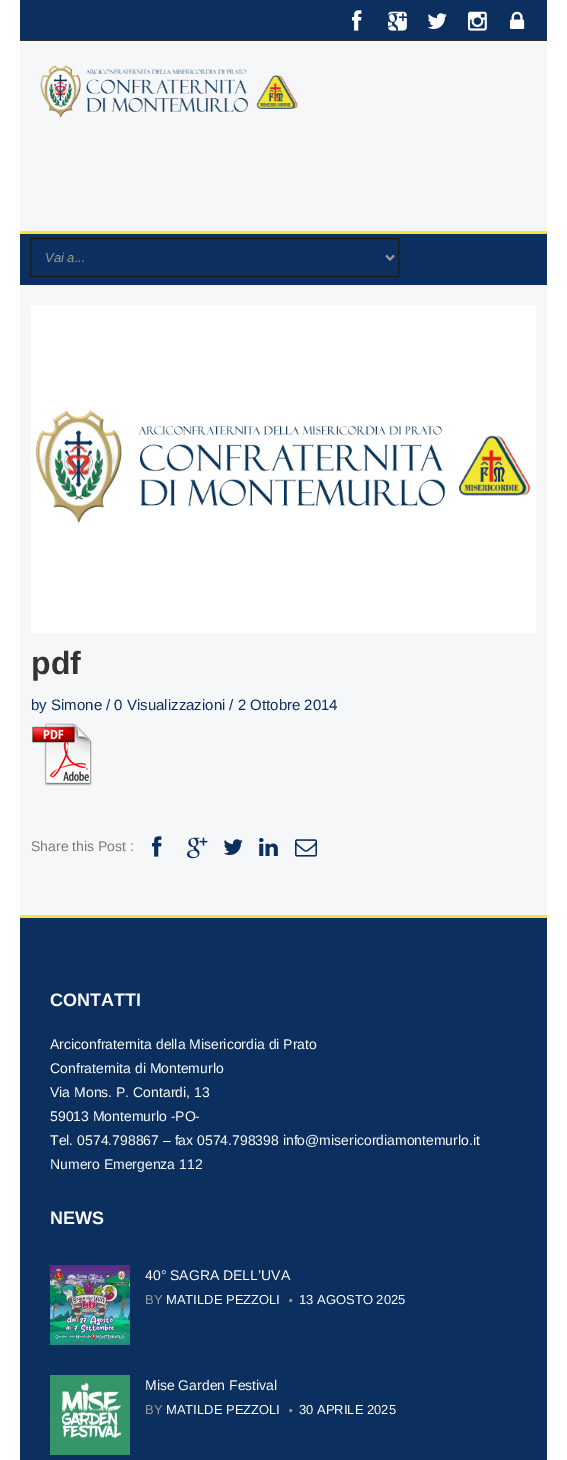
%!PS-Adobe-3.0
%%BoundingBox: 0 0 567 1460
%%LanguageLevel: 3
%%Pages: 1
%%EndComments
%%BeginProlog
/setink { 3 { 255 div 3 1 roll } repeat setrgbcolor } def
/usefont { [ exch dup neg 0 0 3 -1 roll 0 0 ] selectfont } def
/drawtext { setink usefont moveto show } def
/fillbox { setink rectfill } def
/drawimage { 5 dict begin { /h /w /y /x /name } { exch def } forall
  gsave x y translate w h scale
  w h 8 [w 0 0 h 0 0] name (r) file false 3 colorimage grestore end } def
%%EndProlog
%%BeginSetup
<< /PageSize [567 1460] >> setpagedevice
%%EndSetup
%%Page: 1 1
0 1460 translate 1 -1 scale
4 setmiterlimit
0 0 567 1460 255 255 255 fillbox
20 41 527 874 246 247 249 fillbox
20 0 527 40 11 47 94 fillbox
20 40 527 1 48 48 48 fillbox
(assets/img1.rgb) 352 10 10 21 drawimage
(assets/img2.rgb) 388 11 19 20 drawimage
(assets/img3.rgb) 427 13 20 16 drawimage
(assets/img4.rgb) 468 11 19 20 drawimage
(assets/img5.rgb) 510 11 15 18 drawimage
(assets/img6.rgb) 40 65 258 53 drawimage
20 234 527 51 11 47 94 fillbox
20 231 527 3 245 231 47 fillbox
24 27 30 setink
30.5 238.5 368 38 rectstroke
153 154 155 setink
2 setlinewidth
386 255.5 moveto 390 259.5 lineto 394 255.5 lineto stroke
(Vai a...) 45 262 /LiberationSans-Italic 13 153 154 155 drawtext
(assets/img7.rgb) 31 305 505 328 drawimage
(pdf) 31 674 /LiberationSans-Bold 32 51 51 51 drawtext
(by Simone / 0 Visualizzazioni / 2 Ottobre 2014) 31 710 /LiberationSans-Regular 15 11 47 94 drawtext
(assets/img8.rgb) 32 723 60 63 drawimage
(Share this Post :) 31 851 /LiberationSans-Regular 14 125 125 125 drawtext
(assets/img9.rgb) 152 836 10 21 drawimage
(assets/img10.rgb) 187 837 21 22 drawimage
(assets/img11.rgb) 223 839 20 16 drawimage
(assets/img12.rgb) 259 838 19 18 drawimage
(assets/img13.rgb) 295 839 22 18 drawimage
20 918 527 542 11 47 94 fillbox
20 915 527 3 245 231 47 fillbox
(CONTATTI) 50 1006 /LiberationSans-Bold 18 255 255 255 drawtext
(Arciconfraternita della Misericordia di Prato) 50 1049 /LiberationSans-Regular 14 255 255 255 drawtext
(Confraternita di Montemurlo) 50 1073 /LiberationSans-Regular 14 255 255 255 drawtext
(Via Mons. P. Contardi, 13) 50 1097 /LiberationSans-Regular 14 255 255 255 drawtext
(59013 Montemurlo -PO-) 50 1121 /LiberationSans-Regular 14 255 255 255 drawtext
(Tel. 0574.798867 – fax 0574.798398 info@misericordiamontemurlo.it) 50 1145 /LiberationSans-Regular 14 255 255 255 drawtext
(Numero Emergenza 112) 50 1169 /LiberationSans-Regular 14 255 255 255 drawtext
(NEWS) 50 1224 /LiberationSans-Bold 18 255 255 255 drawtext
(assets/img14.rgb) 50 1265 80 80 drawimage
(40° SAGRA DELL’UVA) 145 1280 /LiberationSans-Regular 14 255 255 255 drawtext
(BY) 145 1304 /LiberationSans-Regular 13 153 154 155 drawtext
(MATILDE PEZZOLI) 166 1304 /LiberationSans-Regular 13 255 255 255 drawtext
(assets/img15.rgb) 289 1298 4 5 drawimage
(13 AGOSTO 2025) 299 1304 /LiberationSans-Regular 13 255 255 255 drawtext
(assets/img16.rgb) 50 1375 80 80 drawimage
(Mise Garden Festival) 145 1390 /LiberationSans-Regular 14 255 255 255 drawtext
(BY) 145 1414 /LiberationSans-Regular 13 153 154 155 drawtext
(MATILDE PEZZOLI) 166 1414 /LiberationSans-Regular 13 255 255 255 drawtext
(assets/img15.rgb) 289 1408 4 5 drawimage
(30 APRILE 2025) 299 1414 /LiberationSans-Regular 13 255 255 255 drawtext
showpage
%%EOF
